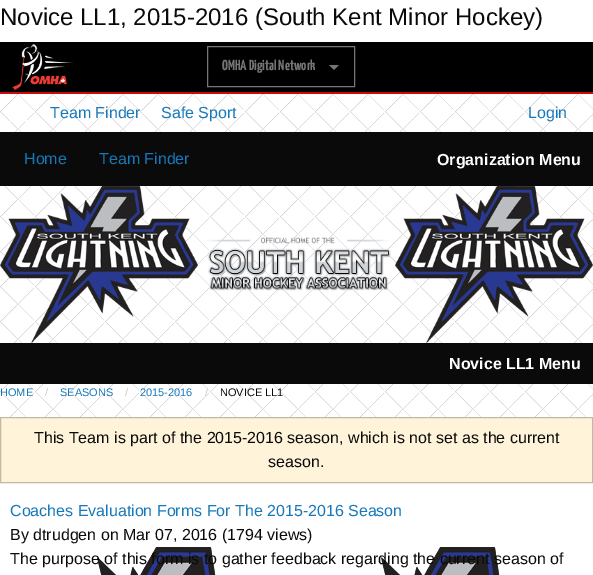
%!PS-Adobe-3.0
%%BoundingBox: 0 0 593 575
%%LanguageLevel: 3
%%Pages: 1
%%EndComments
%%BeginProlog
/setink { 3 { 255 div 3 1 roll } repeat setrgbcolor } def
/usefont { [ exch dup neg 0 0 3 -1 roll 0 0 ] selectfont } def
/drawtext { setink usefont moveto show } def
/fillbox { setink rectfill } def
/drawimage { 5 dict begin { /h /w /y /x /name } { exch def } forall
  gsave x y translate w h scale
  w h 8 [w 0 0 h 0 0] name (r) file false 3 colorimage grestore end } def
%%EndProlog
%%BeginSetup
<< /PageSize [593 575] >> setpagedevice
%%EndSetup
%%Page: 1 1
0 575 translate 1 -1 scale
4 setmiterlimit
0 0 593 575 255 255 255 fillbox
(Novice LL1, 2015-2016 \(South Kent Minor Hockey\)) 0 25 /LiberationSans-Regular 24 10 10 10 drawtext
0 42 593 50 0 0 0 fillbox
0 92 593 2 198 12 12 fillbox
(assets/img1.rgb) 12 44 62 46 drawimage
118 118 118 setink
207.5 46.5 147 40 rectstroke
(OMHA Digital Network) 222 70 /YanoneKaffeesatz-ExtraLight 14.5 118 118 118 drawtext
329 65 moveto 339 65 lineto 334 70 lineto closepath fill
(assets/img2.rgb) 0 94 593 323 drawimage
10 120 20 2 254 254 254 fillbox
29 106 1 1 254 254 254 fillbox
(Team Finder) 50 118 /LiberationSans-Regular 16 23 121 186 drawtext
(Safe Sport) 161 118 /LiberationSans-Regular 16 23 121 186 drawtext
(Login) 528 118 /LiberationSans-Regular 16 23 121 186 drawtext
0 132 593 54 10 10 10 fillbox
(Home) 24 164 /LiberationSans-Regular 16 23 121 186 drawtext
(Team Finder) 99 164 /LiberationSans-Regular 16 23 121 186 drawtext
(Organization Menu) 437 165 /LiberationSans-Bold 16 254 254 254 drawtext
(assets/img3.rgb) 0 186 198 157 drawimage
(assets/img4.rgb) 205 237 186 54 drawimage
(assets/img5.rgb) 395 186 198 157 drawimage
0 343 593 41 10 10 10 fillbox
(Novice LL1 Menu) 449 369 /LiberationSans-Bold 16 254 254 254 drawtext
(HOME) 0 396 /LiberationSans-Regular 11 23 121 186 drawtext
(/) 45 396 /LiberationSans-Regular 11 202 202 202 drawtext
(SEASONS) 60 396 /LiberationSans-Regular 11 23 121 186 drawtext
(/) 125 396 /LiberationSans-Regular 11 202 202 202 drawtext
(2015-2016) 140 396 /LiberationSans-Regular 11 23 121 186 drawtext
(/) 205 396 /LiberationSans-Regular 11 202 202 202 drawtext
(NOVICE LL1) 220 396 /LiberationSans-Regular 11 10 10 10 drawtext
255 243 217 setink
0.5 417.5 moveto 592.5 417.5 lineto 592.5 482.5 lineto 0.5 482.5 lineto closepath gsave fill grestore
194 185 165 setink
stroke
(This Team is part of the 2015-2016 season, which is not set as the current) 34 443 /LiberationSans-Regular 16 10 10 10 drawtext
(season.) 268 467 /LiberationSans-Regular 16 10 10 10 drawtext
(Coaches Evaluation Forms For The 2015-2016 Season) 10 516 /LiberationSans-Regular 16 23 121 186 drawtext
(By dtrudgen on Mar 07, 2016 \(1794 views\)) 10 540 /LiberationSans-Regular 16 10 10 10 drawtext
(assets/img6.rgb) 97 547 403 28 drawimage
(assets/img7.rgb) 97 547 403 28 drawimage
(The purpose of this form is to gather feedback regarding the current season of) 10 564 /LiberationSans-Regular 16 10 10 10 drawtext
showpage
%%EOF
